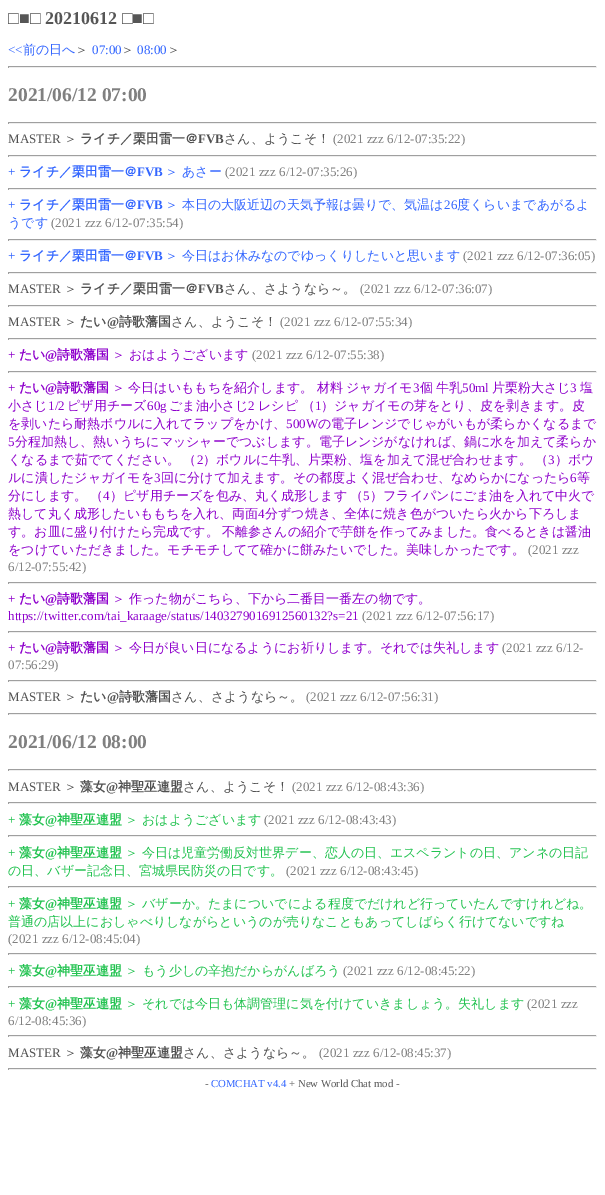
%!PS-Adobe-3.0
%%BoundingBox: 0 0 605 1195
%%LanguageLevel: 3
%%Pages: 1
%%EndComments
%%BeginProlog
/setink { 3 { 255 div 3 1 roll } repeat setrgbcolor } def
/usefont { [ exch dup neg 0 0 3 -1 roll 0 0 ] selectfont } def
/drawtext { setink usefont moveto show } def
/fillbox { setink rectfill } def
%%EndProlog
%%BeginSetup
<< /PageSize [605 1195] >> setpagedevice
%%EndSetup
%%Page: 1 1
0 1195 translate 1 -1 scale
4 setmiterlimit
0 0 605 1195 255 255 255 fillbox
(□■□ 20210612 □■□) 8 24 /LiberationSerif-Bold 18 86 86 86 drawtext
(<<) 8 54 /LiberationSerif-Regular 13 51 102 255 drawtext
(前の日へ) 23 54 /WenQuanYiZenHei-Medium 13 51 102 255 drawtext
(＞) 75 54 /WenQuanYiZenHei-Medium 13 86 86 86 drawtext
(07:00) 92 54 /LiberationSerif-Regular 13 51 102 255 drawtext
(＞) 121 54 /WenQuanYiZenHei-Medium 13 86 86 86 drawtext
(08:00) 137 54 /LiberationSerif-Regular 13 51 102 255 drawtext
(＞) 167 54 /WenQuanYiZenHei-Medium 13 86 86 86 drawtext
8 66 589 1 159 159 159 fillbox
596 66 1 2 238 238 238 fillbox
8 67 589 1 238 238 238 fillbox
8 66 1 2 159 159 159 fillbox
(2021/06/12 07:00) 8 101 /LiberationSerif-Bold 19.5 128 128 128 drawtext
8 122 589 1 159 159 159 fillbox
596 122 1 2 238 238 238 fillbox
8 123 589 1 238 238 238 fillbox
8 122 1 2 159 159 159 fillbox
(MASTER) 8 143 /LiberationSerif-Regular 13 80 80 80 drawtext
(＞) 64 143 /WenQuanYiZenHei-Medium 13 80 80 80 drawtext
(ライチ／栗田雷一＠) 80 143 /WenQuanYiZenHei-Bold 13 80 80 80 drawtext
(FVB) 198 143 /LiberationSerif-Bold 13 80 80 80 drawtext
(さん、ようこそ！) 224 143 /WenQuanYiZenHei-Medium 13 80 80 80 drawtext
(\(2021 zzz 6/12-07:35:22\)) 333 143 /LiberationSerif-Regular 13 128 128 128 drawtext
8 155 589 1 159 159 159 fillbox
596 155 1 2 238 238 238 fillbox
8 156 589 1 238 238 238 fillbox
8 155 1 2 159 159 159 fillbox
(+) 8 176 /LiberationSerif-Regular 13 51 102 255 drawtext
(ライチ／栗田雷一＠) 19 176 /WenQuanYiZenHei-Bold 13 51 102 255 drawtext
(FVB) 137 176 /LiberationSerif-Bold 13 51 102 255 drawtext
(＞ あさー) 165 176 /WenQuanYiZenHei-Medium 13 51 102 255 drawtext
(\(2021 zzz 6/12-07:35:26\)) 225 176 /LiberationSerif-Regular 13 128 128 128 drawtext
8 188 589 1 159 159 159 fillbox
596 188 1 2 238 238 238 fillbox
8 189 589 1 238 238 238 fillbox
8 188 1 2 159 159 159 fillbox
(+) 8 209 /LiberationSerif-Regular 13 51 102 255 drawtext
(ライチ／栗田雷一＠) 19 209 /WenQuanYiZenHei-Bold 13 51 102 255 drawtext
(FVB) 137 209 /LiberationSerif-Bold 13 51 102 255 drawtext
(＞ 本日の大阪近辺の天気予報は曇りで、気温は) 165 209 /WenQuanYiZenHei-Medium 13 51 102 255 drawtext
(26) 444 209 /LiberationSerif-Regular 13 51 102 255 drawtext
(度くらいまであがるよ) 457 209 /WenQuanYiZenHei-Medium 13 51 102 255 drawtext
(うです) 8 227 /WenQuanYiZenHei-Medium 13 51 102 255 drawtext
(\(2021 zzz 6/12-07:35:54\)) 51 227 /LiberationSerif-Regular 13 128 128 128 drawtext
8 239 589 1 159 159 159 fillbox
596 239 1 2 238 238 238 fillbox
8 240 589 1 238 238 238 fillbox
8 239 1 2 159 159 159 fillbox
(+) 8 260 /LiberationSerif-Regular 13 51 102 255 drawtext
(ライチ／栗田雷一＠) 19 260 /WenQuanYiZenHei-Bold 13 51 102 255 drawtext
(FVB) 137 260 /LiberationSerif-Bold 13 51 102 255 drawtext
(＞ 今日はお休みなのでゆっくりしたいと思います) 165 260 /WenQuanYiZenHei-Medium 13 51 102 255 drawtext
(\(2021 zzz 6/12-07:36:05\)) 463 260 /LiberationSerif-Regular 13 128 128 128 drawtext
8 272 589 1 159 159 159 fillbox
596 272 1 2 238 238 238 fillbox
8 273 589 1 238 238 238 fillbox
8 272 1 2 159 159 159 fillbox
(MASTER) 8 293 /LiberationSerif-Regular 13 80 80 80 drawtext
(＞) 64 293 /WenQuanYiZenHei-Medium 13 80 80 80 drawtext
(ライチ／栗田雷一＠) 80 293 /WenQuanYiZenHei-Bold 13 80 80 80 drawtext
(FVB) 198 293 /LiberationSerif-Bold 13 80 80 80 drawtext
(さん、さようなら～。) 224 293 /WenQuanYiZenHei-Medium 13 80 80 80 drawtext
(\(2021 zzz 6/12-07:36:07\)) 360 293 /LiberationSerif-Regular 13 128 128 128 drawtext
8 305 589 1 159 159 159 fillbox
596 305 1 2 238 238 238 fillbox
8 306 589 1 238 238 238 fillbox
8 305 1 2 159 159 159 fillbox
(MASTER) 8 326 /LiberationSerif-Regular 13 80 80 80 drawtext
(＞) 64 326 /WenQuanYiZenHei-Medium 13 80 80 80 drawtext
(たい) 80 326 /WenQuanYiZenHei-Bold 13 80 80 80 drawtext
(@) 107 326 /LiberationSerif-Bold 13 80 80 80 drawtext
(詩歌藩国) 119 326 /WenQuanYiZenHei-Bold 13 80 80 80 drawtext
(さん、ようこそ！) 171 326 /WenQuanYiZenHei-Medium 13 80 80 80 drawtext
(\(2021 zzz 6/12-07:55:34\)) 280 326 /LiberationSerif-Regular 13 128 128 128 drawtext
8 338 589 1 159 159 159 fillbox
596 338 1 2 238 238 238 fillbox
8 339 589 1 238 238 238 fillbox
8 338 1 2 159 159 159 fillbox
(+) 8 359 /LiberationSerif-Regular 13 142 0 204 drawtext
(たい) 19 359 /WenQuanYiZenHei-Bold 13 142 0 204 drawtext
(@) 45 359 /LiberationSerif-Bold 13 142 0 204 drawtext
(詩歌藩国) 57 359 /WenQuanYiZenHei-Bold 13 142 0 204 drawtext
(＞ おはようございます) 112 359 /WenQuanYiZenHei-Medium 13 142 0 204 drawtext
(\(2021 zzz 6/12-07:55:38\)) 252 359 /LiberationSerif-Regular 13 128 128 128 drawtext
8 371 589 1 159 159 159 fillbox
596 371 1 2 238 238 238 fillbox
8 372 589 1 238 238 238 fillbox
8 371 1 2 159 159 159 fillbox
(+) 8 392 /LiberationSerif-Regular 13 142 0 204 drawtext
(たい) 19 392 /WenQuanYiZenHei-Bold 13 142 0 204 drawtext
(@) 45 392 /LiberationSerif-Bold 13 142 0 204 drawtext
(詩歌藩国) 57 392 /WenQuanYiZenHei-Bold 13 142 0 204 drawtext
/WenQuanYiZenHei-Medium 13 usefont
112 392 moveto -0.5 0 32 (＞ 今日はいももちを紹介します。 材料 ジャガイモ) widthshow
(3) 413 392 /LiberationSerif-Regular 13 142 0 204 drawtext
/WenQuanYiZenHei-Medium 13 usefont
420 392 moveto -0.5 0 32 (個 牛乳) widthshow
(50ml) 462 392 /LiberationSerif-Regular 13 142 0 204 drawtext
(片栗粉大さじ) 492 392 /WenQuanYiZenHei-Medium 13 142 0 204 drawtext
(3) 570 392 /LiberationSerif-Regular 13 142 0 204 drawtext
(塩) 580 392 /WenQuanYiZenHei-Medium 13 142 0 204 drawtext
(小さじ) 8 410 /WenQuanYiZenHei-Medium 13 142 0 204 drawtext
(1/2) 48 410 /LiberationSerif-Regular 13 142 0 204 drawtext
(ピザ用チーズ) 67 410 /WenQuanYiZenHei-Medium 13 142 0 204 drawtext
(60g) 147 410 /LiberationSerif-Regular 13 142 0 204 drawtext
(ごま油小さじ) 169 410 /WenQuanYiZenHei-Medium 13 142 0 204 drawtext
(2) 248 410 /LiberationSerif-Regular 13 142 0 204 drawtext
(レシピ （) 258 410 /WenQuanYiZenHei-Medium 13 142 0 204 drawtext
(1) 315 410 /LiberationSerif-Regular 13 142 0 204 drawtext
(）ジャガイモの芽をとり、皮を剥きます。皮) 321 410 /WenQuanYiZenHei-Medium 13 142 0 204 drawtext
(を剥いたら耐熱ボウルに入れてラップをかけ、) 8 428 /WenQuanYiZenHei-Medium 13 142 0 204 drawtext
(500W) 286 428 /LiberationSerif-Regular 13 142 0 204 drawtext
(の電子レンジでじゃがいもが柔らかくなるまで) 318 428 /WenQuanYiZenHei-Medium 13 142 0 204 drawtext
(5) 8 446 /LiberationSerif-Regular 13 142 0 204 drawtext
(分程加熱し、熱いうちにマッシャーでつぶします。電子レンジがなければ、鍋に水を加えて柔らか) 15 446 /WenQuanYiZenHei-Medium 13 142 0 204 drawtext
8 464 moveto -1 0 32 (くなるまで茹でてください。 （) widthshow
(2) 197 464 /LiberationSerif-Regular 13 142 0 204 drawtext
/WenQuanYiZenHei-Medium 13 usefont
203 464 moveto -1 0 32 (）ボウルに牛乳、片栗粉、塩を加えて混ぜ合わせます。 （) widthshow
(3) 548 464 /LiberationSerif-Regular 13 142 0 204 drawtext
(）ボウ) 555 464 /WenQuanYiZenHei-Medium 13 142 0 204 drawtext
(ルに潰したジャガイモを) 8 482 /WenQuanYiZenHei-Medium 13 142 0 204 drawtext
(3) 154 482 /LiberationSerif-Regular 13 142 0 204 drawtext
(回に分けて加えます。その都度よく混ぜ合わせ、なめらかになったら) 161 482 /WenQuanYiZenHei-Medium 13 142 0 204 drawtext
(6) 570 482 /LiberationSerif-Regular 13 142 0 204 drawtext
(等) 577 482 /WenQuanYiZenHei-Medium 13 142 0 204 drawtext
8 500 moveto -1 0 32 (分にします。 （) widthshow
(4) 103 500 /LiberationSerif-Regular 13 142 0 204 drawtext
/WenQuanYiZenHei-Medium 13 usefont
110 500 moveto -1 0 32 (）ピザ用チーズを包み、丸く成形します （) widthshow
(5) 363 500 /LiberationSerif-Regular 13 142 0 204 drawtext
(）フライパンにごま油を入れて中火で) 370 500 /WenQuanYiZenHei-Medium 13 142 0 204 drawtext
(熱して丸く成形したいももちを入れ、両面) 8 518 /WenQuanYiZenHei-Medium 13 142 0 204 drawtext
(4) 258 518 /LiberationSerif-Regular 13 142 0 204 drawtext
(分ずつ焼き、全体に焼き色がついたら火から下ろしま) 265 518 /WenQuanYiZenHei-Medium 13 142 0 204 drawtext
(す。お皿に盛り付けたら完成です。) 8 536 /WenQuanYiZenHei-Medium 13 142 0 204 drawtext
(不離参さんの紹介で芋餅を作ってみました。食べるときは醤油) 222 536 /WenQuanYiZenHei-Medium 13 142 0 204 drawtext
(をつけていただきました。モチモチしてて確かに餅みたいでした。美味しかったです。) 8 554 /WenQuanYiZenHei-Medium 13 142 0 204 drawtext
(\(2021 zzz) 528 554 /LiberationSerif-Regular 13 128 128 128 drawtext
(6/12-07:55:42\)) 8 571 /LiberationSerif-Regular 13 128 128 128 drawtext
8 582 589 1 159 159 159 fillbox
596 582 1 2 238 238 238 fillbox
8 583 589 1 238 238 238 fillbox
8 582 1 2 159 159 159 fillbox
(+) 8 603 /LiberationSerif-Regular 13 142 0 204 drawtext
(たい) 19 603 /WenQuanYiZenHei-Bold 13 142 0 204 drawtext
(@) 45 603 /LiberationSerif-Bold 13 142 0 204 drawtext
(詩歌藩国) 57 603 /WenQuanYiZenHei-Bold 13 142 0 204 drawtext
(＞ 作った物がこちら、下から二番目一番左の物です。) 112 603 /WenQuanYiZenHei-Medium 13 142 0 204 drawtext
(https://twitter.com/tai_karaage/status/1403279016912560132?s=21) 8 620 /LiberationSerif-Regular 13 142 0 204 drawtext
(\(2021 zzz 6/12-07:56:17\)) 362 620 /LiberationSerif-Regular 13 128 128 128 drawtext
8 631 589 1 159 159 159 fillbox
596 631 1 2 238 238 238 fillbox
8 632 589 1 238 238 238 fillbox
8 631 1 2 159 159 159 fillbox
(+) 8 652 /LiberationSerif-Regular 13 142 0 204 drawtext
(たい) 19 652 /WenQuanYiZenHei-Bold 13 142 0 204 drawtext
(@) 45 652 /LiberationSerif-Bold 13 142 0 204 drawtext
(詩歌藩国) 57 652 /WenQuanYiZenHei-Bold 13 142 0 204 drawtext
(＞ 今日が良い日になるようにお祈りします。それでは失礼します) 112 652 /WenQuanYiZenHei-Medium 13 142 0 204 drawtext
(\(2021 zzz 6/12-) 502 652 /LiberationSerif-Regular 13 128 128 128 drawtext
(07:56:29\)) 8 669 /LiberationSerif-Regular 13 128 128 128 drawtext
8 680 589 1 159 159 159 fillbox
596 680 1 2 238 238 238 fillbox
8 681 589 1 238 238 238 fillbox
8 680 1 2 159 159 159 fillbox
(MASTER) 8 701 /LiberationSerif-Regular 13 80 80 80 drawtext
(＞) 64 701 /WenQuanYiZenHei-Medium 13 80 80 80 drawtext
(たい) 80 701 /WenQuanYiZenHei-Bold 13 80 80 80 drawtext
(@) 107 701 /LiberationSerif-Bold 13 80 80 80 drawtext
(詩歌藩国) 119 701 /WenQuanYiZenHei-Bold 13 80 80 80 drawtext
(さん、さようなら～。) 171 701 /WenQuanYiZenHei-Medium 13 80 80 80 drawtext
(\(2021 zzz 6/12-07:56:31\)) 306 701 /LiberationSerif-Regular 13 128 128 128 drawtext
8 713 589 1 159 159 159 fillbox
596 713 1 2 238 238 238 fillbox
8 714 589 1 238 238 238 fillbox
8 713 1 2 159 159 159 fillbox
(2021/06/12 08:00) 8 748 /LiberationSerif-Bold 19.5 128 128 128 drawtext
8 769 589 1 159 159 159 fillbox
596 769 1 2 238 238 238 fillbox
8 770 589 1 238 238 238 fillbox
8 769 1 2 159 159 159 fillbox
(MASTER) 8 791 /LiberationSerif-Regular 13 80 80 80 drawtext
(＞) 64 791 /WenQuanYiZenHei-Medium 13 80 80 80 drawtext
(藻女) 80 791 /WenQuanYiZenHei-Bold 13 80 80 80 drawtext
(@) 106 791 /LiberationSerif-Bold 13 80 80 80 drawtext
(神聖巫連盟) 118 791 /WenQuanYiZenHei-Bold 13 80 80 80 drawtext
(さん、ようこそ！) 183 791 /WenQuanYiZenHei-Medium 13 80 80 80 drawtext
(\(2021 zzz 6/12-08:43:36\)) 292 791 /LiberationSerif-Regular 13 128 128 128 drawtext
8 802 589 1 159 159 159 fillbox
596 802 1 2 238 238 238 fillbox
8 803 589 1 238 238 238 fillbox
8 802 1 2 159 159 159 fillbox
(+) 8 824 /LiberationSerif-Regular 13 34 195 80 drawtext
(藻女) 19 824 /WenQuanYiZenHei-Bold 13 34 195 80 drawtext
(@) 45 824 /LiberationSerif-Bold 13 34 195 80 drawtext
(神聖巫連盟) 57 824 /WenQuanYiZenHei-Bold 13 34 195 80 drawtext
(＞ おはようございます) 125 824 /WenQuanYiZenHei-Medium 13 34 195 80 drawtext
(\(2021 zzz 6/12-08:43:43\)) 264 824 /LiberationSerif-Regular 13 128 128 128 drawtext
8 835 589 1 159 159 159 fillbox
596 835 1 2 238 238 238 fillbox
8 836 589 1 238 238 238 fillbox
8 835 1 2 159 159 159 fillbox
(+) 8 857 /LiberationSerif-Regular 13 34 195 80 drawtext
(藻女) 19 857 /WenQuanYiZenHei-Bold 13 34 195 80 drawtext
(@) 45 857 /LiberationSerif-Bold 13 34 195 80 drawtext
(神聖巫連盟) 57 857 /WenQuanYiZenHei-Bold 13 34 195 80 drawtext
(＞ 今日は児童労働反対世界デー、恋人の日、エスペラントの日、アンネの日記) 125 857 /WenQuanYiZenHei-Medium 13 34 195 80 drawtext
(の日、バザー記念日、宮城県民防災の日です。) 8 875 /WenQuanYiZenHei-Medium 13 34 195 80 drawtext
(\(2021 zzz 6/12-08:43:45\)) 286 875 /LiberationSerif-Regular 13 128 128 128 drawtext
8 886 589 1 159 159 159 fillbox
596 886 1 2 238 238 238 fillbox
8 887 589 1 238 238 238 fillbox
8 886 1 2 159 159 159 fillbox
(+) 8 908 /LiberationSerif-Regular 13 34 195 80 drawtext
(藻女) 19 908 /WenQuanYiZenHei-Bold 13 34 195 80 drawtext
(@) 45 908 /LiberationSerif-Bold 13 34 195 80 drawtext
(神聖巫連盟) 57 908 /WenQuanYiZenHei-Bold 13 34 195 80 drawtext
(＞ バザーか。たまについでによる程度でだけれど行っていたんですけれどね。) 125 908 /WenQuanYiZenHei-Medium 13 34 195 80 drawtext
(普通の店以上におしゃべりしながらというのが売りなこともあってしばらく行けてないですね) 8 926 /WenQuanYiZenHei-Medium 13 34 195 80 drawtext
(\(2021 zzz 6/12-08:45:04\)) 8 943 /LiberationSerif-Regular 13 128 128 128 drawtext
8 953 589 1 159 159 159 fillbox
596 953 1 2 238 238 238 fillbox
8 954 589 1 238 238 238 fillbox
8 953 1 2 159 159 159 fillbox
(+) 8 975 /LiberationSerif-Regular 13 34 195 80 drawtext
(藻女) 19 975 /WenQuanYiZenHei-Bold 13 34 195 80 drawtext
(@) 45 975 /LiberationSerif-Bold 13 34 195 80 drawtext
(神聖巫連盟) 57 975 /WenQuanYiZenHei-Bold 13 34 195 80 drawtext
(＞ もう少しの辛抱だからがんばろう) 125 975 /WenQuanYiZenHei-Medium 13 34 195 80 drawtext
(\(2021 zzz 6/12-08:45:22\)) 343 975 /LiberationSerif-Regular 13 128 128 128 drawtext
8 986 589 1 159 159 159 fillbox
596 986 1 2 238 238 238 fillbox
8 987 589 1 238 238 238 fillbox
8 986 1 2 159 159 159 fillbox
(+) 8 1008 /LiberationSerif-Regular 13 34 195 80 drawtext
(藻女) 19 1008 /WenQuanYiZenHei-Bold 13 34 195 80 drawtext
(@) 45 1008 /LiberationSerif-Bold 13 34 195 80 drawtext
(神聖巫連盟) 57 1008 /WenQuanYiZenHei-Bold 13 34 195 80 drawtext
(＞ それでは今日も体調管理に気を付けていきましょう。失礼します) 125 1008 /WenQuanYiZenHei-Medium 13 34 195 80 drawtext
(\(2021 zzz) 527 1008 /LiberationSerif-Regular 13 128 128 128 drawtext
(6/12-08:45:36\)) 8 1025 /LiberationSerif-Regular 13 128 128 128 drawtext
8 1035 589 1 159 159 159 fillbox
596 1035 1 2 238 238 238 fillbox
8 1036 589 1 238 238 238 fillbox
8 1035 1 2 159 159 159 fillbox
(MASTER) 8 1057 /LiberationSerif-Regular 13 80 80 80 drawtext
(＞) 64 1057 /WenQuanYiZenHei-Medium 13 80 80 80 drawtext
(藻女) 80 1057 /WenQuanYiZenHei-Bold 13 80 80 80 drawtext
(@) 106 1057 /LiberationSerif-Bold 13 80 80 80 drawtext
(神聖巫連盟) 118 1057 /WenQuanYiZenHei-Bold 13 80 80 80 drawtext
(さん、さようなら～。) 183 1057 /WenQuanYiZenHei-Medium 13 80 80 80 drawtext
(\(2021 zzz 6/12-08:45:37\)) 319 1057 /LiberationSerif-Regular 13 128 128 128 drawtext
8 1068 589 1 159 159 159 fillbox
596 1068 1 2 238 238 238 fillbox
8 1069 589 1 238 238 238 fillbox
8 1068 1 2 159 159 159 fillbox
(-) 205 1087 /LiberationSerif-Regular 10.75 86 86 86 drawtext
(COMCHAT v4.4) 211 1087 /LiberationSerif-Regular 10.75 51 102 255 drawtext
(+ New World Chat mod -) 289 1087 /LiberationSerif-Regular 10.75 86 86 86 drawtext
showpage
%%EOF
